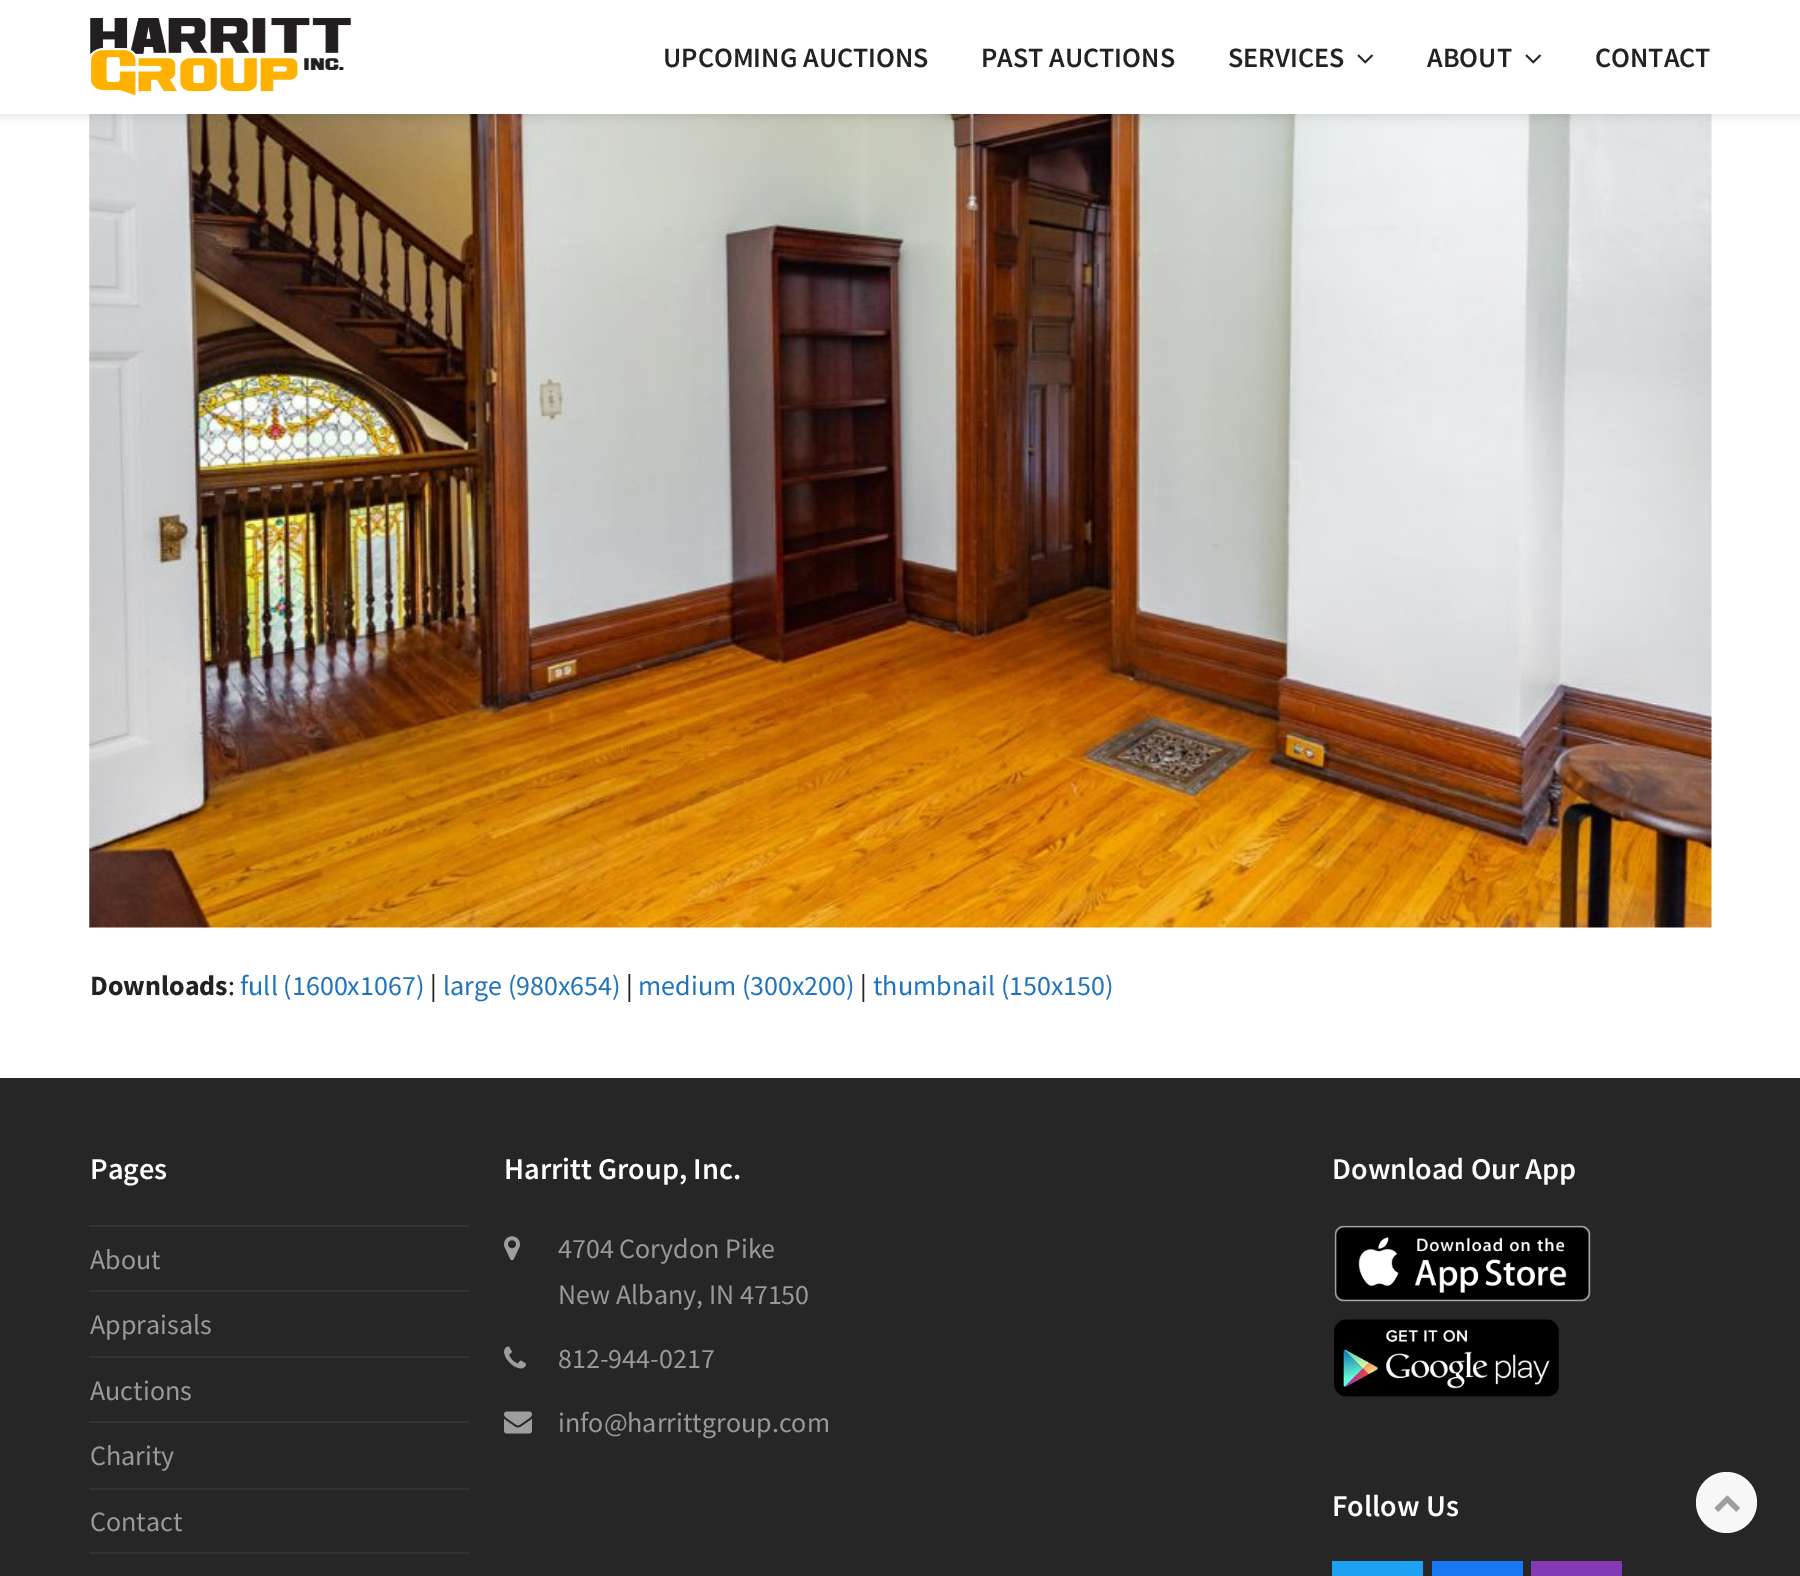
%!PS-Adobe-3.0
%%BoundingBox: 0 0 1800 1576
%%LanguageLevel: 3
%%Pages: 1
%%EndComments
%%BeginProlog
/setink { 3 { 255 div 3 1 roll } repeat setrgbcolor } def
/usefont { [ exch dup neg 0 0 3 -1 roll 0 0 ] selectfont } def
/drawtext { setink usefont moveto show } def
/fillbox { setink rectfill } def
/setalpha { dup .setfillconstantalpha .setstrokeconstantalpha } def
/disc { newpath 0 360 arc closepath } def
/rrect { 5 dict begin { /r /h /w /y /x } { exch def } forall
  x r add y moveto x w add y 2 copy h add r arct x w add y h add x 1 index r arct
  x y h add x y r arct x y 2 copy exch w add exch r arct closepath end } def
/softshadow { 12 dict begin { /a /b /q /h /w /y /x } { exch def } forall gsave /was 0 def
  9 -2 -9 { dup b mul 4 div /e exch def 1 sub .425 mul 2.718 exch exp 1 add a .99 .min exch div /now exch def
    1 1 now sub 1 was sub div sub setalpha /was now def
    w h .min e 2 mul add 0 gt { x e sub y e sub w e 2 mul add h e 2 mul add
      q e add b .6 mul add w h .min 2 div e add .min 0 .max rrect fill } if } for grestore end } def
/drawimage { 5 dict begin { /h /w /y /x /name } { exch def } forall
  gsave x y translate w h scale
  w h 8 [w 0 0 h 0 0] name (r) file false 3 colorimage grestore end } def
%%EndProlog
%%BeginSetup
<< /PageSize [1800 1576] /PageUsesTransparency true >> setpagedevice
%%EndSetup
%%Page: 1 1
0 .pushpdf14devicefilter
0 1576 translate 1 -1 scale
4 setmiterlimit
0 0 1800 1576 255 255 255 fillbox
(assets/img3.rgb) 89 114 1623 814 drawimage
0 0 0 setink
0 4 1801 113 0 4.5 0.1 softshadow
0 0 1800 114 255 255 255 fillbox
(assets/img1.rgb) 90 18 261 77 drawimage
(UPCOMING AUCTIONS) 663 67 /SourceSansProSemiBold-SemiBold 28 34 34 34 drawtext
(PAST AUCTIONS) 981 67 /SourceSansProSemiBold-SemiBold 28 34 34 34 drawtext
(SERVICES) 1228 67 /SourceSansProSemiBold-SemiBold 28 34 34 34 drawtext
(assets/img2.rgb) 1357 54 16 10 drawimage
(ABOUT) 1427 67 /SourceSansProSemiBold-SemiBold 28 34 34 34 drawtext
(assets/img2.rgb) 1525 54 16 10 drawimage
(CONTACT) 1595 67 /SourceSansProSemiBold-SemiBold 28 34 34 34 drawtext
(Downloads) 90 995 /SourceSansPro-Bold 28 34 34 34 drawtext
(:) 228 995 /SourceSansPro-Regular 28 34 34 34 drawtext
(full \(1600x1067\)) 240 995 /SourceSansPro-Regular 28 30 115 190 drawtext
(|) 430 995 /SourceSansPro-Regular 28 34 34 34 drawtext
(large \(980x654\)) 443 995 /SourceSansPro-Regular 28 30 115 190 drawtext
(|) 626 995 /SourceSansPro-Regular 28 34 34 34 drawtext
(medium \(300x200\)) 638 995 /SourceSansPro-Regular 28 30 115 190 drawtext
(|) 860 995 /SourceSansPro-Regular 28 34 34 34 drawtext
(thumbnail \(150x150\)) 873 995 /SourceSansPro-Regular 28 30 115 190 drawtext
0 1078 1800 498 38 38 38 fillbox
(Pages) 90 1179 /SourceSansProSemiBold-SemiBold 30.25 255 255 255 drawtext
89 1225 380 2 51 51 51 fillbox
89 1290 380 2 51 51 51 fillbox
(About) 90 1269 /SourceSansPro-Regular 28 153 153 153 drawtext
89 1356 380 2 51 51 51 fillbox
(Appraisals) 90 1334 /SourceSansPro-Regular 28 153 153 153 drawtext
89 1421 380 2 51 51 51 fillbox
(Auctions) 90 1400 /SourceSansPro-Regular 28 153 153 153 drawtext
89 1488 380 2 51 51 51 fillbox
(Charity) 90 1465 /SourceSansPro-Regular 28 153 153 153 drawtext
89 1552 380 2 51 51 51 fillbox
(Contact) 90 1531 /SourceSansPro-Regular 28 153 153 153 drawtext
(Harritt Group, Inc.) 504 1179 /SourceSansProSemiBold-SemiBold 30.25 255 255 255 drawtext
(assets/img4.rgb) 504 1236 16 25 drawimage
(4704 Corydon Pike) 558 1258 /SourceSansPro-Regular 28 153 153 153 drawtext
(New Albany, IN 47150) 558 1304 /SourceSansPro-Regular 28 153 153 153 drawtext
(assets/img5.rgb) 504 1346 22 23 drawimage
(812-944-0217) 558 1368 /SourceSansPro-Regular 28 153 153 153 drawtext
(assets/img6.rgb) 504 1411 28 23 drawimage
(info@harrittgroup.com) 558 1432 /SourceSansPro-Regular 28 153 153 153 drawtext
(Download Our App) 1332 1179 /SourceSansProSemiBold-SemiBold 30.25 255 255 255 drawtext
(assets/img7.rgb) 1334 1225 257 77 drawimage
(assets/img8.rgb) 1334 1319 225 78 drawimage
(Follow Us) 1332 1516 /SourceSansProSemiBold-SemiBold 30.25 255 255 255 drawtext
1332 1561 91 15 29 161 242 fillbox
1432 1561 91 15 24 119 242 fillbox
1531 1561 91 15 131 58 180 fillbox
247 247 247 setink
1726.5 1502.5 30.5 disc fill
(assets/img9.rgb) 1714 1495 26 17 drawimage
.poppdf14devicefilter showpage
%%EOF
